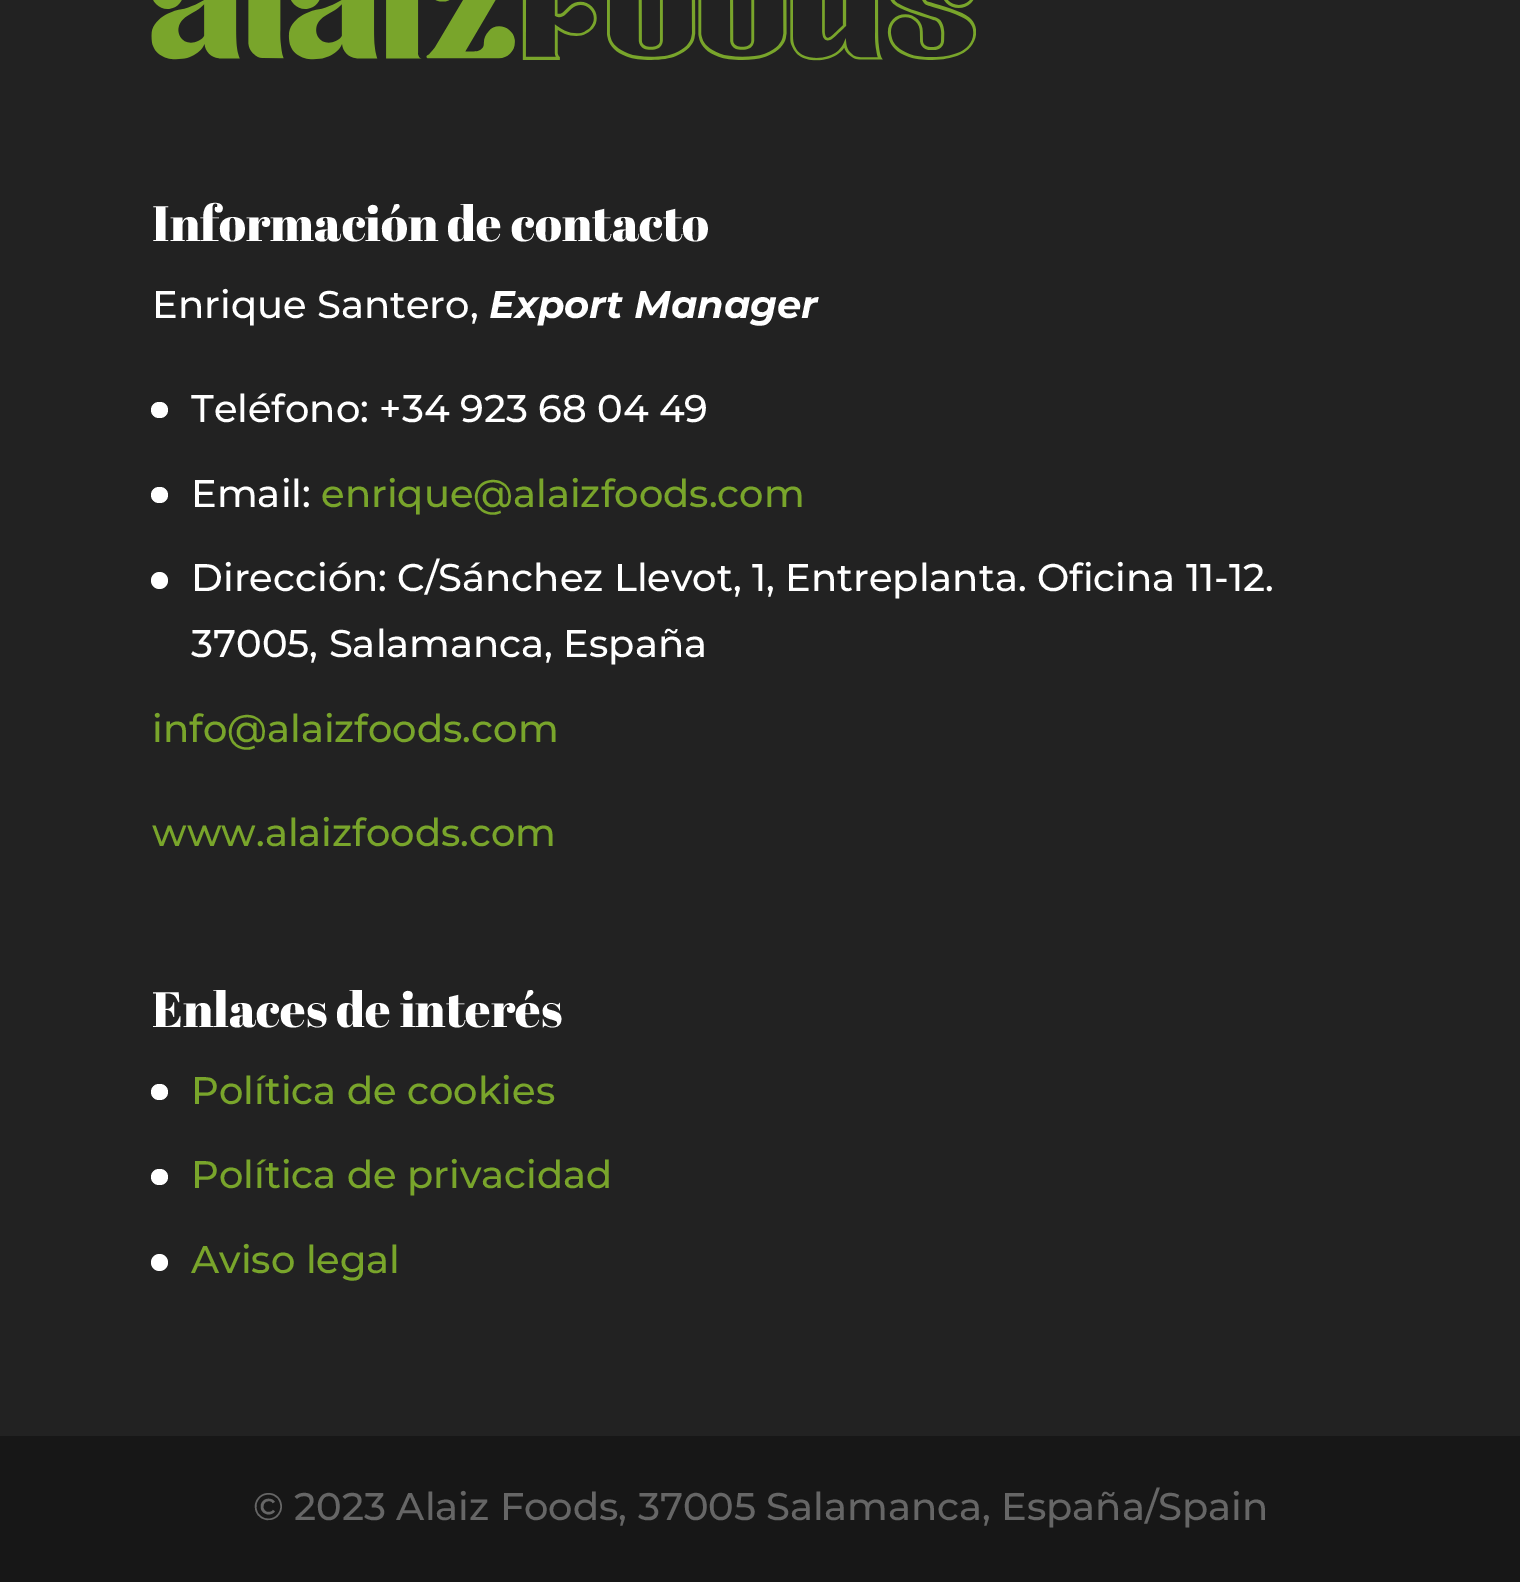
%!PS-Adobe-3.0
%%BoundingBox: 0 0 1520 1582
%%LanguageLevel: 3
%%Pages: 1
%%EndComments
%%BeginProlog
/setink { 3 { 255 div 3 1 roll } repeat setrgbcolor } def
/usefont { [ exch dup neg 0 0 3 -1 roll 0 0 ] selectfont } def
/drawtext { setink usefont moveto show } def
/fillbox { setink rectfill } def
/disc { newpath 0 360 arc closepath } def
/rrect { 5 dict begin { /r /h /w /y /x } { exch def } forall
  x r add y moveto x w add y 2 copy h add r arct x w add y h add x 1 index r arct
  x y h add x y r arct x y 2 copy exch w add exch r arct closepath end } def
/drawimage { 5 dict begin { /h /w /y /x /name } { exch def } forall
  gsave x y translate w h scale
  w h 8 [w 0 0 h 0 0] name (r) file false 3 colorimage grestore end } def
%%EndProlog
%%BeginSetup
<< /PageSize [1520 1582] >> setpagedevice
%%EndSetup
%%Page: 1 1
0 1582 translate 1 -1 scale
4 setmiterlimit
0 0 1520 1582 34 34 34 fillbox
(assets/img1.rgb) 151 0 825 61 drawimage
(Información de contacto) 152 241 /AbrilFatface-Regular 49.5 255 255 255 drawtext
(Enrique Santero,) 152 318 /Montserrat-Medium 38.5 255 255 255 drawtext
(Export Manager) 489 318 /Montserrat-BoldItalic 38.5 255 255 255 drawtext
151 402 17 16 8 rrect fill
(Teléfono: +34 923 68 04 49) 191 422 /Montserrat-Medium 38.5 255 255 255 drawtext
151 487 17 16 8 rrect fill
(Email:) 191 507 /Montserrat-Medium 38.5 255 255 255 drawtext
(enrique@alaizfoods.com) 321 507 /Montserrat-Medium 38.5 121 165 43 drawtext
255 255 255 setink
159.5 580.5 8.5 disc fill
(Dirección: C/Sánchez Llevot, 1, Entreplanta. Oficina 11-12.) 191 591 /Montserrat-Medium 38.5 255 255 255 drawtext
(37005, Salamanca, España) 191 657 /Montserrat-Medium 38.5 255 255 255 drawtext
(info@alaizfoods.com) 152 742 /Montserrat-Medium 38.5 121 165 43 drawtext
(www.alaizfoods.com) 152 846 /Montserrat-Medium 38.5 121 165 43 drawtext
(Enlaces de interés) 152 1027 /AbrilFatface-Regular 49.5 255 255 255 drawtext
151 1084 17 16 8 rrect fill
(Política de cookies) 191 1104 /Montserrat-Medium 38.5 121 165 43 drawtext
255 255 255 setink
151 1169 17 16 8 rrect fill
(Política de privacidad) 191 1188 /Montserrat-Medium 38.5 121 165 43 drawtext
255 255 255 setink
159.5 1262.5 8.5 disc fill
(Aviso legal) 191 1273 /Montserrat-Medium 38.5 121 165 43 drawtext
0 1436 1520 146 23 23 23 fillbox
(© 2023 Alaiz Foods, 37005 Salamanca, España/Spain) 253 1520 /Montserrat-Medium 38.5 102 102 102 drawtext
showpage
%%EOF
